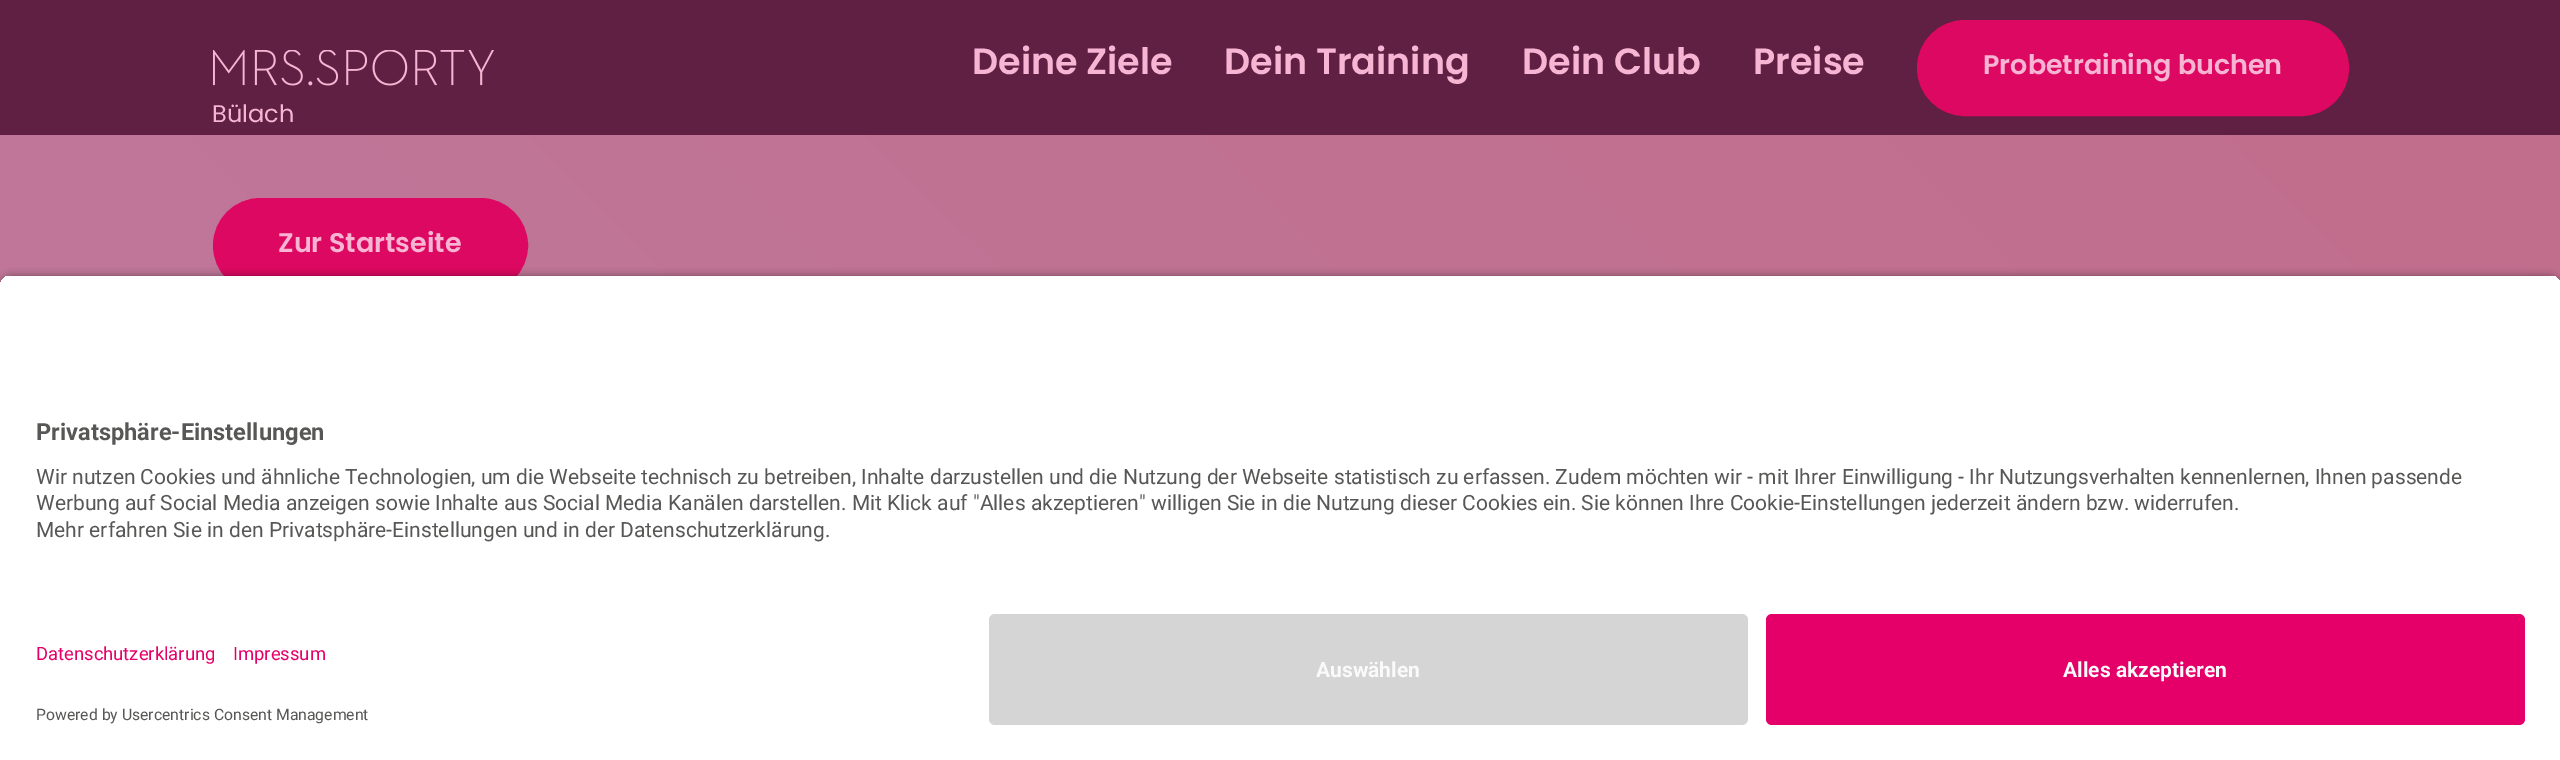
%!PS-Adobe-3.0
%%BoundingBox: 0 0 2560 760
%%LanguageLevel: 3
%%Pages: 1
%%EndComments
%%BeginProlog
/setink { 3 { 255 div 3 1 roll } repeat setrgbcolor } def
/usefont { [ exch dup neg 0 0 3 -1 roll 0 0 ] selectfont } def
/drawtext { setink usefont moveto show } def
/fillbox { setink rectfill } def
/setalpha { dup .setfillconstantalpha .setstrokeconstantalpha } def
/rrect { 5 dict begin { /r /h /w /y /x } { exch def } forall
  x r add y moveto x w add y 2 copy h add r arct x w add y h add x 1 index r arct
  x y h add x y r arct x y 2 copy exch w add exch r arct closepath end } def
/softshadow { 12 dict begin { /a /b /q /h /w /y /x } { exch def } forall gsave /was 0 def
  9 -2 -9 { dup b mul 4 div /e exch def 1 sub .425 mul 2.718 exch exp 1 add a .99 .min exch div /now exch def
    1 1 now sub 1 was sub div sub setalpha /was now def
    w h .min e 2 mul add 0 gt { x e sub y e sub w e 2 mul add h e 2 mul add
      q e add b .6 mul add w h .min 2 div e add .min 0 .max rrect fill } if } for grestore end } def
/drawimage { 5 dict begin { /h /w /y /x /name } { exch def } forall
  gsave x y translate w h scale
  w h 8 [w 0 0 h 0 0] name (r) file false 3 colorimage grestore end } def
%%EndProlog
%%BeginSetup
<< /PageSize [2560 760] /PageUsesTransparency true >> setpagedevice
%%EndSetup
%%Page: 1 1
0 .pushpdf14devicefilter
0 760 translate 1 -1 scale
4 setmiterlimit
0 0 2560 760 255 255 255 fillbox
0 0 2560 135 95 32 67 fillbox
(Deine Ziele) 972 74 /Poppins-SemiBold 36.5 247 181 211 drawtext
(Dein Training) 1224 74 /Poppins-SemiBold 36.5 247 181 211 drawtext
(Dein Club) 1522 74 /Poppins-SemiBold 36.5 247 181 211 drawtext
(Preise) 1753 74 /Poppins-SemiBold 36.5 247 181 211 drawtext
221 8 97 setink
1920 23 426 90 45 rrect gsave fill grestore
6 setlinewidth
stroke
(Probetraining buchen) 1983 74 /Poppins-SemiBold 27 247 181 211 drawtext
(assets/img1.rgb) 213 50 281 36 drawimage
(Bülach) 212 122 /Poppins-Regular 24 247 181 211 drawtext
gsave 0 135 moveto 2560 135 lineto 2560 287 lineto 0 287 lineto closepath clip newpath
<< /ShadingType 2 /ColorSpace /DeviceRGB /Coords [474 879 2087 -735] /Extend [true true] /Function << /FunctionType 2 /Domain [0 1] /C0 [0.749 0.467 0.604] /C1 [0.761 0.427 0.541] /N 1 >> >> shfill grestore
221 8 97 setink
216 201 309 89 44.5 rrect gsave fill grestore
stroke
(Zur Startseite) 278 252 /Poppins-SemiBold 27 247 181 211 drawtext
0 0 0 setink
0 279 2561 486 12 5 0.8 softshadow
gsave
12 275 moveto 2549 275 lineto 2555.5 275 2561 280.5 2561 287 curveto 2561 602 lineto 0 602 lineto 0 287 lineto 0 280.5 5.5 275 12 275 curveto closepath clip newpath
0 276 2560 326 255 255 255 fillbox
grestore
(Privatsphäre-Einstellungen) 36 440 /Roboto-Bold 23.6 87 87 86 drawtext
(Wir nutzen Cookies und ähnliche Technologien, um die Webseite technisch zu betreiben, Inhalte darzustellen und die Nutzung der Webseite statistisch zu erfassen. Zudem möchten wir - mit Ihrer Einwilligung - Ihr Nutzungsverhalten kennenlernen, Ihnen passende) 36 484 /Roboto-Regular 21 87 87 86 drawtext
(Werbung auf Social Media anzeigen sowie Inhalte aus Social Media Kanälen darstellen. Mit Klick auf "Alles akzeptieren" willigen Sie in die Nutzung dieser Cookies ein. Sie können Ihre Cookie-Einstellungen jederzeit ändern bzw. widerrufen.) 36 510 /Roboto-Regular 21 87 87 86 drawtext
(Mehr erfahren Sie in den Privatsphäre-Einstellungen und in der Datenschutzerklärung.) 36 537 /Roboto-Regular 21 87 87 86 drawtext
0 602 2560 158 255 255 255 fillbox
(Datenschutzerklärung) 36 660 /Roboto-Regular 18.4 229 0 105 drawtext
(Impressum) 233 660 /Roboto-Regular 18.4 229 0 105 drawtext
(Powered by Usercentrics Consent Management) 36 720 /Roboto-Regular 15.75 87 87 86 drawtext
213 213 213 setink
989 614 759 111 6 rrect fill
(Auswählen) 1316 677 /Roboto-Bold 21 250 250 250 drawtext
229 0 105 setink
1766 614 759 111 6 rrect fill
(Alles akzeptieren) 2063 677 /Roboto-Bold 21 250 250 250 drawtext
.poppdf14devicefilter showpage
%%EOF
